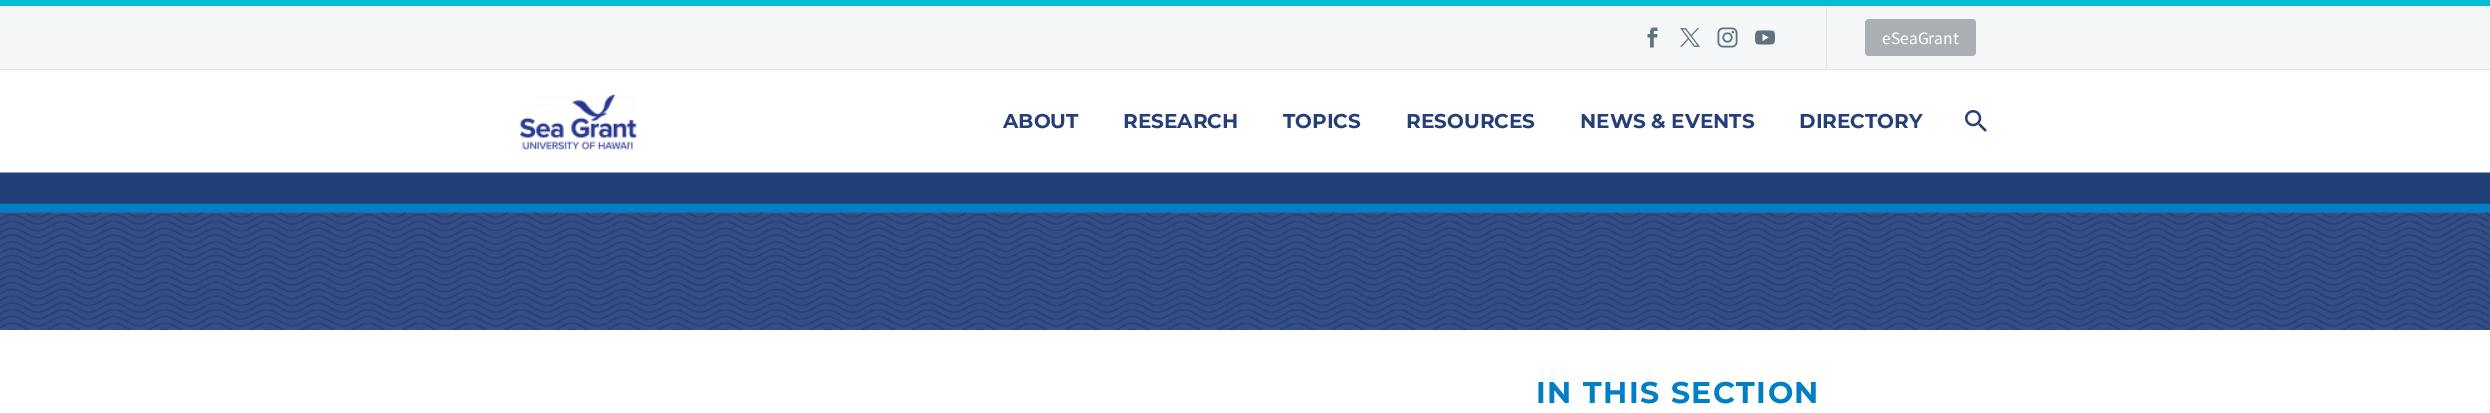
%!PS-Adobe-3.0
%%BoundingBox: 0 0 2490 413
%%LanguageLevel: 3
%%Pages: 1
%%EndComments
%%BeginProlog
/setink { 3 { 255 div 3 1 roll } repeat setrgbcolor } def
/usefont { [ exch dup neg 0 0 3 -1 roll 0 0 ] selectfont } def
/drawtext { setink usefont moveto show } def
/fillbox { setink rectfill } def
/rrect { 5 dict begin { /r /h /w /y /x } { exch def } forall
  x r add y moveto x w add y 2 copy h add r arct x w add y h add x 1 index r arct
  x y h add x y r arct x y 2 copy exch w add exch r arct closepath end } def
/drawimage { 5 dict begin { /h /w /y /x /name } { exch def } forall
  gsave x y translate w h scale
  w h 8 [w 0 0 h 0 0] name (r) file false 3 colorimage grestore end } def
%%EndProlog
%%BeginSetup
<< /PageSize [2490 413] >> setpagedevice
%%EndSetup
%%Page: 1 1
0 413 translate 1 -1 scale
4 setmiterlimit
0 0 2490 413 244 246 247 fillbox
0 0 2490 6 0 188 212 fillbox
0 69 2490 1 223 229 232 fillbox
(assets/img1.rgb) 1647 27 11 21 drawimage
(assets/img2.rgb) 1680 28 20 19 drawimage
(assets/img3.rgb) 1717 27 21 21 drawimage
(assets/img4.rgb) 1755 30 20 15 drawimage
1826 6 1 63 223 229 232 fillbox
170 175 179 setink
1865 19 111 37 4 rrect fill
(eSeaGrant) 1882 44 /SourceSansPro-Regular 17.5 255 255 255 drawtext
0 70 2490 103 255 255 255 fillbox
(assets/img5.rgb) 519 93 118 58 drawimage
(ABOUT) 1003 128 /Montserrat-Bold 20 38 63 120 drawtext
(RESEARCH) 1123 128 /Montserrat-Bold 20 38 63 120 drawtext
(TOPICS) 1283 128 /Montserrat-Bold 20 38 63 120 drawtext
(RESOURCES) 1406 128 /Montserrat-Bold 20 38 63 120 drawtext
(NEWS & EVENTS) 1580 128 /Montserrat-Bold 20 38 63 120 drawtext
(DIRECTORY) 1799 128 /Montserrat-Bold 20 38 63 120 drawtext
(assets/img6.rgb) 1965 110 22 22 drawimage
0 330 2490 83 255 255 255 fillbox
(assets/img7.rgb) 0 172 2490 158 drawimage
/Montserrat-Bold 30 usefont
0 126 198 setink
1536 403 moveto 1.5 0 (IN THIS SECTION) ashow
showpage
%%EOF
